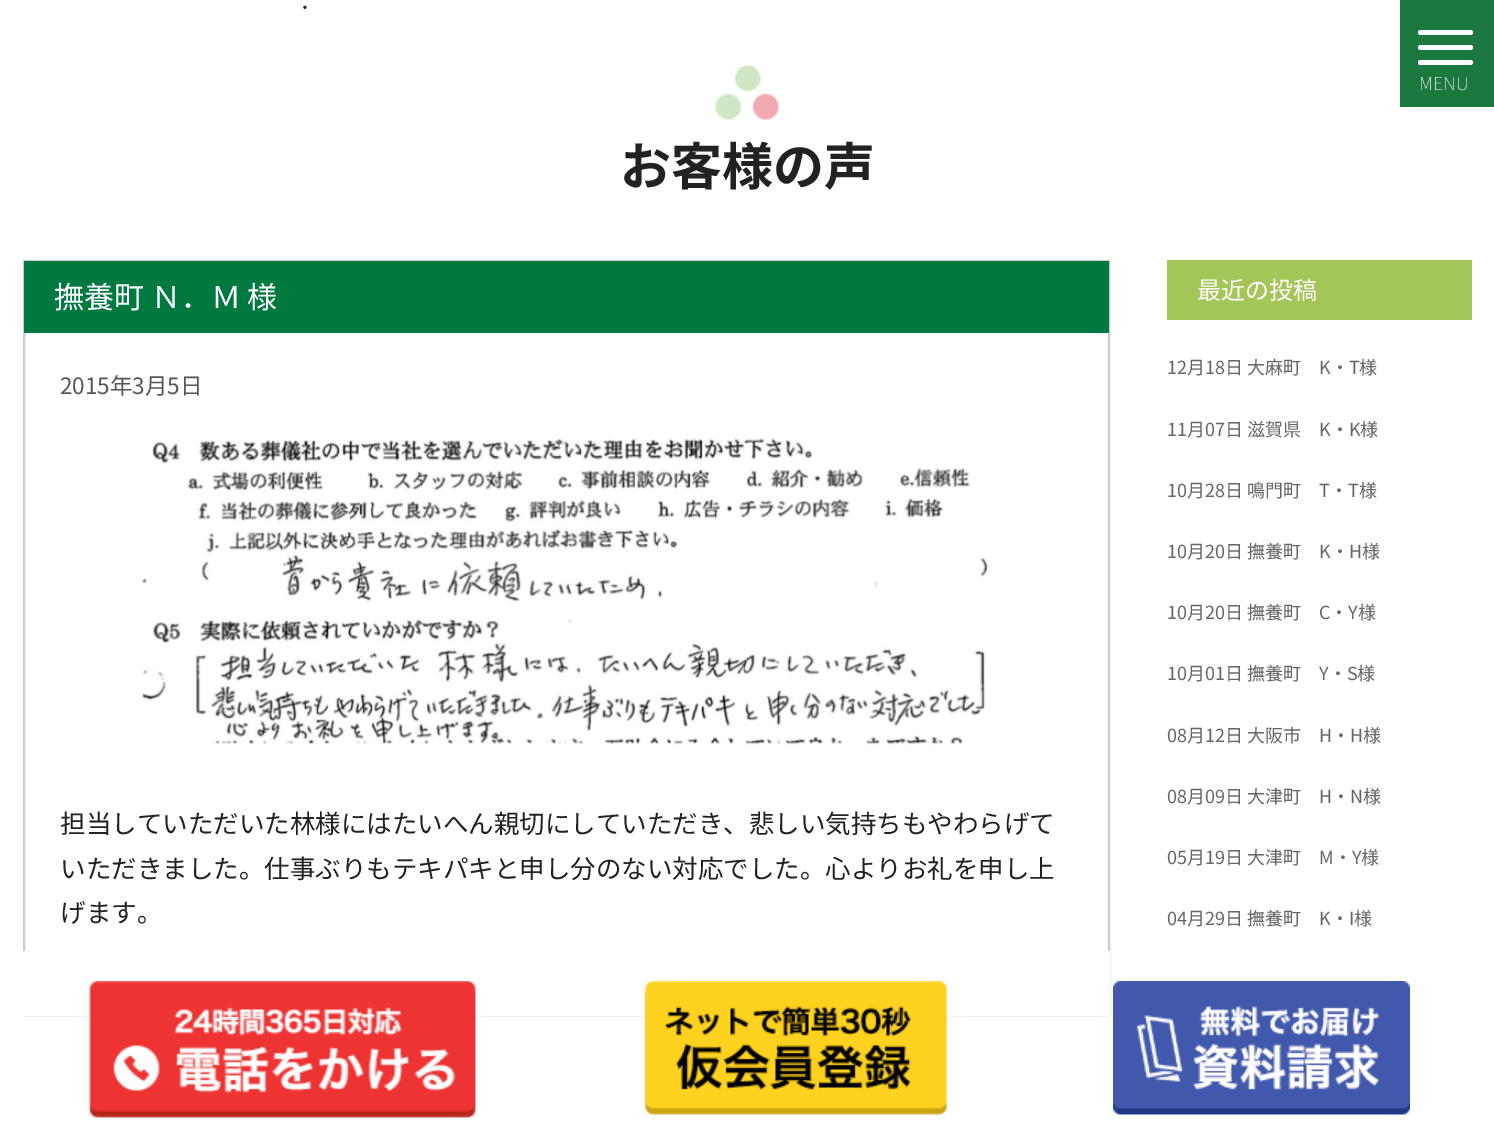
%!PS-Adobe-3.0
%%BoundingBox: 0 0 1494 1147
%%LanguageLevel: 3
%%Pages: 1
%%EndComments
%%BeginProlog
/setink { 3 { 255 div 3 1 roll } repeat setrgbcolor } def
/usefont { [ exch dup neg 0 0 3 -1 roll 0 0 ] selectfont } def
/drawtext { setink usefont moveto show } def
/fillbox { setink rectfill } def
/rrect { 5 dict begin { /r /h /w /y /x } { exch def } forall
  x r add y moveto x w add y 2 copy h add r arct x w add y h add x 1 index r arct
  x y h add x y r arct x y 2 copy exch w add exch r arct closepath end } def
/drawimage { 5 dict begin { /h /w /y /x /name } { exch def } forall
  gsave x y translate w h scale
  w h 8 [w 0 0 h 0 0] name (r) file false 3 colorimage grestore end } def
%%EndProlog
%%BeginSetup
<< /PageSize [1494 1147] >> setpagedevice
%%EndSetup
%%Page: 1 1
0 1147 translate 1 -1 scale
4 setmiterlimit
0 0 1494 1147 255 255 255 fillbox
(．) 300 9 /NotoSansJP-Regular 21 34 34 34 drawtext
1400 0 94 107 27 121 64 fillbox
255 255 255 setink
1418 30 55 5 2.5 rrect fill
1418 45 55 5 2.5 rrect fill
1418 60 55 5 2.5 rrect fill
(MENU) 1419 90 /NotoSansJP-Thin 18 255 255 255 drawtext
(assets/img1.rgb) 715 65 64 55 drawimage
(お客様の声) 620 185 /NotoSansJP-Bold 51 34 34 34 drawtext
204 204 204 setink
2 setlinewidth
24 261 1085 754 rectstroke
24 261 1085 72 0 121 64 fillbox
(撫養町 Ｎ．Ｍ 様) 54 308 /NotoSansJP-Regular 30 255 255 255 drawtext
(2015年3月5日) 60 394 /NotoSansJP-Regular 22.5 85 85 85 drawtext
(assets/img2.rgb) 142 438 846 307 drawimage
(担当していただいた林様にはたいへん親切にしていただき、悲しい気持ちもやわらげて) 60 833 /NotoSansJP-Regular 25.5 34 34 34 drawtext
(いただきました。仕事ぶりもテキパキと申し分のない対応でした。心よりお礼を申し上) 60 878 /NotoSansJP-Regular 25.5 34 34 34 drawtext
(げます。) 60 922 /NotoSansJP-Regular 25.5 34 34 34 drawtext
1167 260 305 60 164 197 88 fillbox
(最近の投稿) 1197 299 /NotoSansJP-Regular 24 255 255 255 drawtext
(12月18日 大麻町　K・T様) 1167 374 /NotoSansJP-Regular 18 102 102 102 drawtext
(11月07日 滋賀県　K・K様) 1167 436 /NotoSansJP-Regular 18 102 102 102 drawtext
(10月28日 鳴門町　T・T様) 1167 497 /NotoSansJP-Regular 18 102 102 102 drawtext
(10月20日 撫養町　K・H様) 1167 558 /NotoSansJP-Regular 18 102 102 102 drawtext
(10月20日 撫養町　C・Y様) 1167 619 /NotoSansJP-Regular 18 102 102 102 drawtext
(10月01日 撫養町　Y・S様) 1167 680 /NotoSansJP-Regular 18 102 102 102 drawtext
(08月12日 大阪市　H・H様) 1167 742 /NotoSansJP-Regular 18 102 102 102 drawtext
(08月09日 大津町　H・N様) 1167 803 /NotoSansJP-Regular 18 102 102 102 drawtext
(05月19日 大津町　M・Y様) 1167 864 /NotoSansJP-Regular 18 102 102 102 drawtext
(04月29日 撫養町　K・I様) 1167 925 /NotoSansJP-Regular 18 102 102 102 drawtext
23 951 1087 65 255 255 255 fillbox
(assets/img3.rgb) 89 981 387 137 drawimage
(assets/img4.rgb) 645 981 303 134 drawimage
(assets/img5.rgb) 1113 981 297 134 drawimage
showpage
%%EOF
